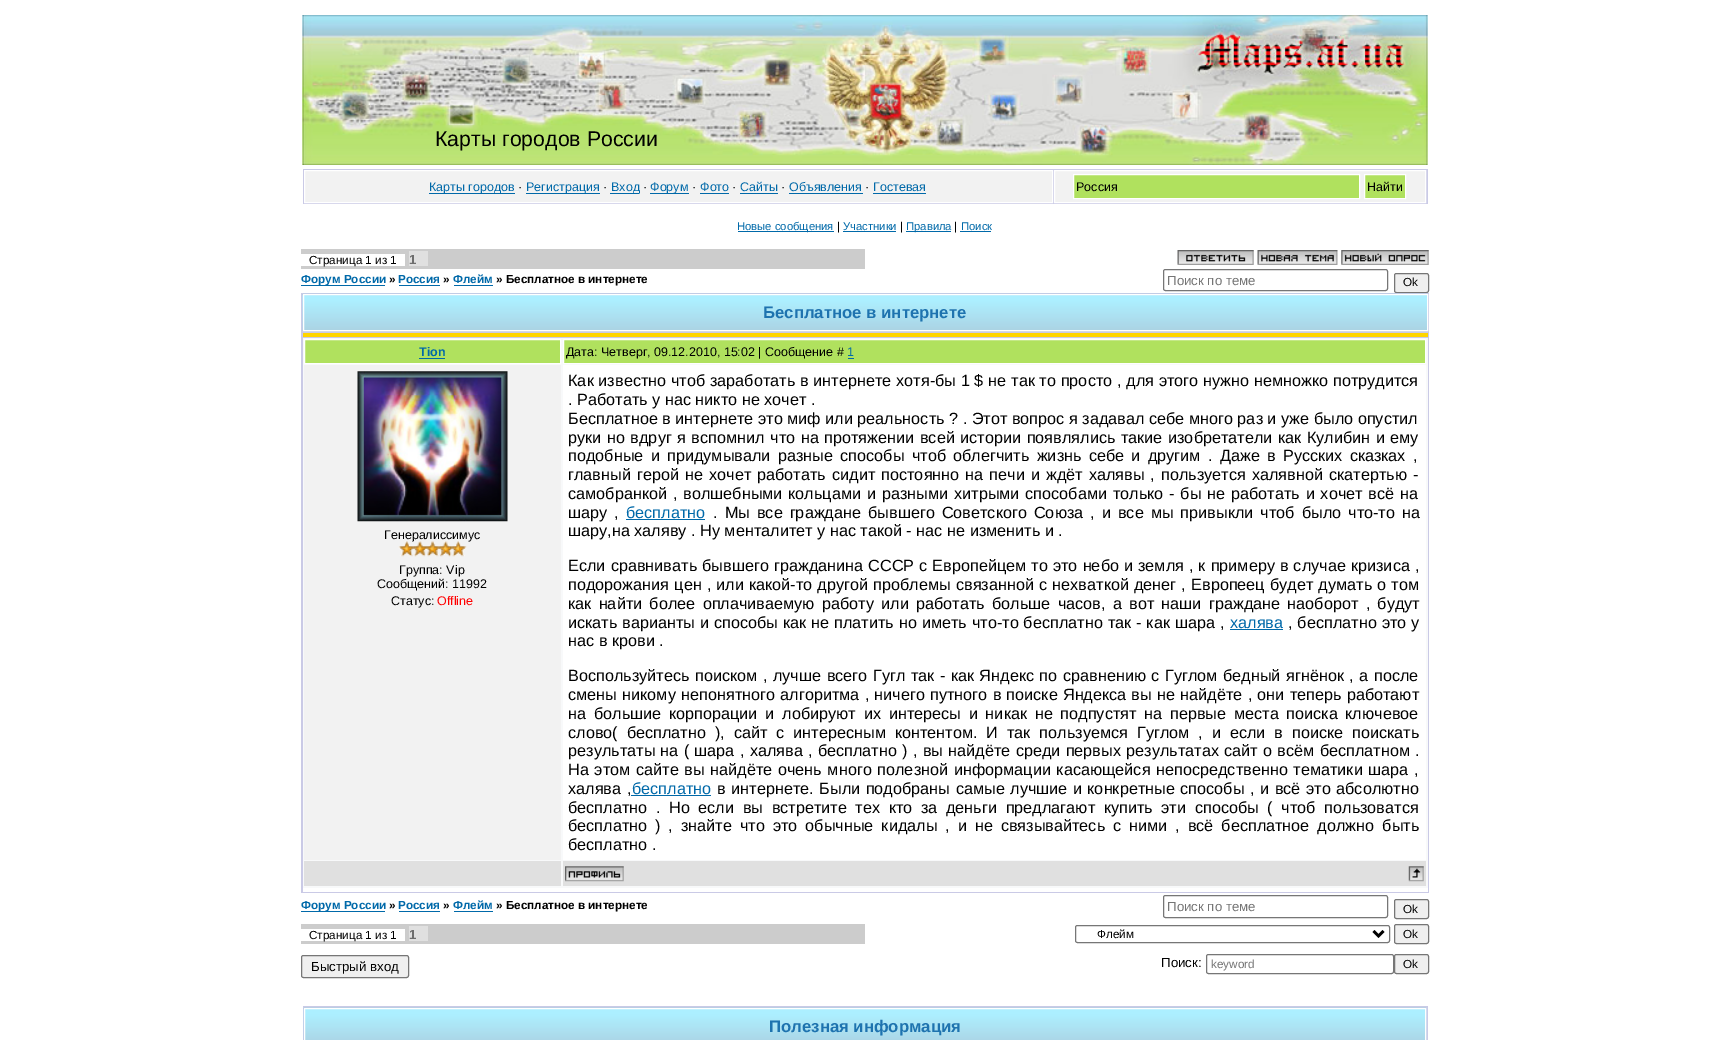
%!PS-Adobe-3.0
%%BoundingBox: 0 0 1728 1040
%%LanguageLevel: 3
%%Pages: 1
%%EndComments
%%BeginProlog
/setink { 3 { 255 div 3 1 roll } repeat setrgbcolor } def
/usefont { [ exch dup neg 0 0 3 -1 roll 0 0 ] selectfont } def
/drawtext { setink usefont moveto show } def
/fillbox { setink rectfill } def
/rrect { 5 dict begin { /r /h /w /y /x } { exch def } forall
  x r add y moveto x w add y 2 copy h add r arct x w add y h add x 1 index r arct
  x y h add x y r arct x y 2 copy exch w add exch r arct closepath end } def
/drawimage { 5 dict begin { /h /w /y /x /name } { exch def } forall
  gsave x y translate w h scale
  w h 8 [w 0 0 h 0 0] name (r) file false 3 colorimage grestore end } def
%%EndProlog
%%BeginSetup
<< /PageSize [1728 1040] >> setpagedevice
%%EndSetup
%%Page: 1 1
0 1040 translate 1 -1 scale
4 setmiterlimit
0 0 1728 1040 255 255 255 fillbox
(assets/img1.rgb) 302 15 1126 150 drawimage
(assets/img2.rgb) 302 15 1126 150 drawimage
(Карты городов России) 435 146 /LiberationSans-Regular 21.25 0 0 0 drawtext
303 169 1125 35 202 202 230 fillbox
242 242 242 setink
304.5 170.5 moveto 1052.5 170.5 lineto 1052.5 202.5 lineto 304.5 202.5 lineto closepath gsave fill grestore
255 255 255 setink
stroke
429 193 86 1 0 105 169 fillbox
(Карты городов) 429 191 /LiberationSans-Regular 12.5 0 105 169 drawtext
(·) 518 191 /LiberationSans-Regular 12.5 0 0 0 drawtext
526 193 74 1 0 105 169 fillbox
(Регистрация) 526 191 /LiberationSans-Regular 12.5 0 105 169 drawtext
(·) 603 191 /LiberationSans-Regular 12.5 0 0 0 drawtext
610 193 29 1 0 105 169 fillbox
(Вход) 611 191 /LiberationSans-Regular 12.5 0 105 169 drawtext
(·) 643 191 /LiberationSans-Regular 12.5 0 0 0 drawtext
650 193 39 1 0 105 169 fillbox
(Форум) 650 191 /LiberationSans-Regular 12.5 0 105 169 drawtext
(·) 692 191 /LiberationSans-Regular 12.5 0 0 0 drawtext
(Фото) 700 191 /LiberationSans-Regular 12.5 0 105 169 drawtext
700 193 29 1 0 105 169 fillbox
(·) 732 191 /LiberationSans-Regular 12.5 0 0 0 drawtext
(Cайты) 740 191 /LiberationSans-Regular 12.5 0 105 169 drawtext
740 193 38 1 0 105 169 fillbox
(·) 781 191 /LiberationSans-Regular 12.5 0 0 0 drawtext
(Объявления) 789 191 /LiberationSans-Regular 12.5 0 105 169 drawtext
789 193 74 1 0 105 169 fillbox
(·) 865 191 /LiberationSans-Regular 12.5 0 0 0 drawtext
(Гостевая) 873 191 /LiberationSans-Regular 12.5 0 105 169 drawtext
873 193 53 1 0 105 169 fillbox
242 242 242 setink
1054.5 170.5 moveto 1425.5 170.5 lineto 1425.5 202.5 lineto 1054.5 202.5 lineto closepath gsave fill grestore
255 255 255 setink
stroke
176 225 94 setink
1073.5 174.5 moveto 1359.5 174.5 lineto 1359.5 198.5 lineto 1073.5 198.5 lineto closepath gsave fill grestore
255 255 255 setink
stroke
(Россия) 1076 191 /LiberationSans-Regular 12.5 0 0 0 drawtext
176 225 94 setink
1364.5 174.5 moveto 1405.5 174.5 lineto 1405.5 198.5 lineto 1364.5 198.5 lineto closepath gsave fill grestore
255 255 255 setink
stroke
(Найти) 1367 191 /LiberationSans-Regular 12.5 0 0 0 drawtext
738 231 96 1 0 105 169 fillbox
(Новые сообщения) 737 230 /LiberationSans-Regular 11.25 0 105 169 drawtext
(|) 837 230 /LiberationSans-Regular 11.25 0 0 0 drawtext
(Участники) 843 230 /LiberationSans-Regular 11.25 0 105 169 drawtext
843 231 53 1 0 105 169 fillbox
(|) 900 230 /LiberationSans-Regular 11.25 0 0 0 drawtext
906 231 45 1 0 105 169 fillbox
(Правила) 906 230 /LiberationSans-Regular 11.25 0 105 169 drawtext
(|) 954 230 /LiberationSans-Regular 11.25 0 0 0 drawtext
(Поиск) 961 230 /LiberationSans-Regular 11.25 0 105 169 drawtext
960 231 31 1 0 105 169 fillbox
301 249 564 20 204 204 204 fillbox
301 254 104 12 255 255 255 fillbox
(Страница 1 из 1) 309 264 /LiberationSans-Regular 11.7 0 0 0 drawtext
409 251 19 15 224 224 224 fillbox
(1) 409 264 /LiberationSans-Bold 13.25 110 110 110 drawtext
(assets/img3.rgb) 1177 250 77 15 drawimage
(assets/img4.rgb) 1257 250 81 15 drawimage
(assets/img5.rgb) 1341 250 88 15 drawimage
301 285 84 1 0 105 169 fillbox
(Форум России) 301 283 /LiberationSans-Bold 11.7 0 105 169 drawtext
(») 389 283 /LiberationSans-Bold 11.7 0 0 0 drawtext
(Россия) 398 283 /LiberationSans-Bold 11.7 0 105 169 drawtext
399 285 41 1 0 105 169 fillbox
(») 443 283 /LiberationSans-Bold 11.7 0 0 0 drawtext
(Флейм) 453 283 /LiberationSans-Bold 11.7 0 105 169 drawtext
454 285 39 1 0 105 169 fillbox
(» Бесплатное в интернете) 496 283 /LiberationSans-Bold 11.7 0 0 0 drawtext
118 118 118 setink
1163.5 269.5 224 21 2 rrect stroke
(Поиск по теме) 1167 285 /LiberationSans-Regular 13.25 117 117 117 drawtext
239 239 239 setink
1394.5 273.5 34 19 2 rrect gsave fill grestore
118 118 118 setink
stroke
(Ok) 1403 286 /LiberationSans-Regular 11.7 0 0 0 drawtext
301 293 1128 600 202 202 230 fillbox
(assets/img6.rgb) 302 293 1126 39 drawimage
255 255 255 setink
303.5 294.5 1124 36 rectstroke
(Бесплатное в интернете) 763 318 /LiberationSans-Bold 16.75 30 115 175 drawtext
303 333 1125 4 255 213 0 fillbox
303 338 1125 550 248 249 250 fillbox
303 888 1125 4 255 255 255 fillbox
176 225 94 setink
304.5 339.5 moveto 560.5 339.5 lineto 560.5 363.5 lineto 304.5 363.5 lineto closepath gsave fill grestore
255 255 255 setink
stroke
(Tion) 419 356 /LiberationSans-Bold 12.5 0 105 169 drawtext
419 358 26 1 0 105 169 fillbox
176 225 94 setink
563.5 339.5 moveto 1425.5 339.5 lineto 1425.5 363.5 lineto 563.5 363.5 lineto closepath gsave fill grestore
255 255 255 setink
stroke
(Дата: Четверг, 09.12.2010, 15:02 | Сообщение #) 566 356 /LiberationSans-Regular 12.5 0 0 0 drawtext
(1) 847 356 /LiberationSans-Regular 12.5 0 105 169 drawtext
848 358 6 1 0 105 169 fillbox
304 365 257 495 242 242 242 fillbox
(assets/img7.rgb) 357 371 151 151 drawimage
(Генералиссимус) 384 539 /LiberationSans-Regular 12.5 0 0 0 drawtext
(assets/img8.rgb) 398 541 69 16 drawimage
(Группа: Vip) 399 574 /LiberationSans-Regular 12.5 0 0 0 drawtext
(Сообщений: 11992) 377 588 /LiberationSans-Regular 12.5 0 0 0 drawtext
(Статус:) 391 605 /LiberationSans-Regular 12.5 0 0 0 drawtext
(Offline) 437 605 /LiberationSans-Regular 12.5 255 0 0 drawtext
563 365 863 495 255 255 255 fillbox
/LiberationSans-Regular 16.25 usefont
0 0 0 setink
568 386 moveto 0.25 0 32 (Как известно чтоб заработать в интернете хотя-бы 1 $ не так то просто , для этого нужно немножко потрудится) widthshow
(. Работать у нас никто не хочет .) 568 405 /LiberationSans-Regular 16.25 0 0 0 drawtext
(Бесплатное в интернете это миф или реальность ? . Этот вопрос я задавал себе много раз и уже было опустил) 568 424 /LiberationSans-Regular 16.25 0 0 0 drawtext
568 443 moveto 1 0 32 (руки но вдруг я вспомнил что на протяжении всей истории появлялись такие изобретатели как Кулибин и ему) widthshow
568 461 moveto 2.75 0 32 (подобные и придумывали разные способы чтоб облегчить жизнь себе и другим . Даже в Русских сказках ,) widthshow
568 480 moveto 1.5 0 32 (главный герой не хочет работать сидит постоянно на печи и ждёт халявы , пользуется халявной скатертью -) widthshow
568 499 moveto 1.3 0 32 (самобранкой , волшебными кольцами и разными хитрыми способами только - бы не работать и хочет всё на) widthshow
568 518 moveto 2.5 0 32 (шару ,) widthshow
(бесплатно) 626 518 /LiberationSans-Regular 16.25 0 105 169 drawtext
626 519 79 1 0 105 169 fillbox
0 0 0 setink
713 518 moveto 2.5 0 32 (. Мы все граждане бывшего Советского Союза , и все мы привыкли чтоб было что-то на) widthshow
(шару,на халяву . Ну менталитет у нас такой - нас не изменить и .) 568 536 /LiberationSans-Regular 16.25 0 0 0 drawtext
568 571 moveto 0.5 0 32 (Если сравнивать бывшего гражданина СССР с Европейцем то это небо и земля , к примеру в случае кризиса ,) widthshow
568 590 moveto 0.6 0 32 (подорожания цен , или какой-то другой проблемы связанной с нехваткой денег , Европеец будет думать о том) widthshow
568 609 moveto 2.75 0 32 (как найти более оплачиваемую работу или работать больше часов, а вот наши граждане наоборот , будут) widthshow
568 628 moveto 0.4 0 32 (искать варианты и способы как не платить но иметь что-то бесплатно так - как шара ,) widthshow
(халява) 1230 628 /LiberationSans-Regular 16.25 0 105 169 drawtext
1230 629 53 1 0 105 169 fillbox
0 0 0 setink
1288 628 moveto 0.4 0 32 (, бесплатно это у) widthshow
(нас в крови .) 568 646 /LiberationSans-Regular 16.25 0 0 0 drawtext
568 681 moveto 1 0 32 (Воспользуйтесь поиском , лучше всего Гугл так - как Яндекс по сравнению с Гуглом бедный ягнёнок , а после) widthshow
568 700 moveto 0.7 0 32 (смены никому непонятного алгоритма , ничего путного в поиске Яндекса вы не найдёте , они теперь работают) widthshow
568 719 moveto 3.25 0 32 (на большие корпорации и лобируют их интересы и никак не подпустят на первые места поиска ключевое) widthshow
568 738 moveto 4.4 0 32 (слово\( бесплатно \), сайт с интересным контентом. И так пользуемся Гуглом , и если в поиске поискать) widthshow
568 756 moveto 0.75 0 32 (результаты на \( шара , халява , бесплатно \) , вы найдёте среди первых результатах сайт о всём бесплатном .) widthshow
568 775 moveto 1.1 0 32 (На этом сайте вы найдёте очень много полезной информации касающейся непосредственно тематики шара ,) widthshow
568 794 moveto 1 0 32 (халява ,) widthshow
(бесплатно) 632 794 /LiberationSans-Regular 16.25 0 105 169 drawtext
631 795 80 1 0 105 169 fillbox
0 0 0 setink
717 794 moveto 1 0 32 (в интернете. Были подобраны самые лучшие и конкретные способы , и всё это абсолютно) widthshow
568 813 moveto 4.1 0 32 (бесплатно . Но если вы встретите тех кто за деньги предлагают купить эти способы \( чтоб пользоватся) widthshow
568 831 moveto 3.4 0 32 (бесплатно \) , знайте что это обычные кидалы , и не связывайтесь с ними , всё бесплатное должно быть) widthshow
(бесплатно .) 568 850 /LiberationSans-Regular 16.25 0 0 0 drawtext
304 861 257 25 224 224 224 fillbox
563 861 863 25 224 224 224 fillbox
(assets/img9.rgb) 565 866 59 16 drawimage
(assets/img10.rgb) 1408 866 16 16 drawimage
301 911 84 1 0 105 169 fillbox
(Форум России) 301 909 /LiberationSans-Bold 11.7 0 105 169 drawtext
(») 389 909 /LiberationSans-Bold 11.7 0 0 0 drawtext
(Россия) 398 909 /LiberationSans-Bold 11.7 0 105 169 drawtext
399 911 41 1 0 105 169 fillbox
(») 443 909 /LiberationSans-Bold 11.7 0 0 0 drawtext
(Флейм) 453 909 /LiberationSans-Bold 11.7 0 105 169 drawtext
454 911 39 1 0 105 169 fillbox
(» Бесплатное в интернете) 496 909 /LiberationSans-Bold 11.7 0 0 0 drawtext
118 118 118 setink
1163.5 895.5 224 22 2 rrect stroke
(Поиск по теме) 1167 911 /LiberationSans-Regular 13.25 117 117 117 drawtext
239 239 239 setink
1394.5 899.5 34 19 2 rrect gsave fill grestore
118 118 118 setink
stroke
(Ok) 1403 913 /LiberationSans-Regular 11.7 0 0 0 drawtext
301 924 564 20 204 204 204 fillbox
301 929 104 12 255 255 255 fillbox
(Страница 1 из 1) 309 939 /LiberationSans-Regular 11.7 0 0 0 drawtext
409 926 19 15 224 224 224 fillbox
(1) 409 939 /LiberationSans-Bold 13.25 110 110 110 drawtext
118 118 118 setink
1075.5 925.5 314 17 2 rrect stroke
0 0 0 setink
2.5 setlinewidth
1373.5 931 moveto 1378.5 936 lineto 1383.5 931 lineto stroke
(Флейм) 1097 938 /LiberationSans-Regular 11.7 0 0 0 drawtext
239 239 239 setink
1394.5 924.5 34 19 2 rrect gsave fill grestore
118 118 118 setink
1 setlinewidth
stroke
(Ok) 1403 938 /LiberationSans-Regular 11.7 0 0 0 drawtext
239 239 239 setink
301.5 955.5 107 22 2 rrect gsave fill grestore
118 118 118 setink
stroke
(Быстрый вход) 311 971 /LiberationSans-Regular 13.25 0 0 0 drawtext
(Поиск:) 1161 967 /LiberationSans-Regular 13.25 0 0 0 drawtext
118 118 118 setink
1206.5 954.5 187 19 2 rrect stroke
(keyword) 1211 968 /LiberationSans-Regular 11.7 117 117 117 drawtext
239 239 239 setink
1394.5 954.5 34 19 2 rrect gsave fill grestore
118 118 118 setink
stroke
(Ok) 1403 968 /LiberationSans-Regular 11.7 0 0 0 drawtext
303 1006 1125 34 202 202 230 fillbox
(assets/img11.rgb) 303 1007 1124 33 drawimage
255 255 255 setink
304.5 1008.5 1121 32 rectstroke
(Полезная информация) 769 1032 /LiberationSans-Bold 16.75 30 115 175 drawtext
showpage
%%EOF
